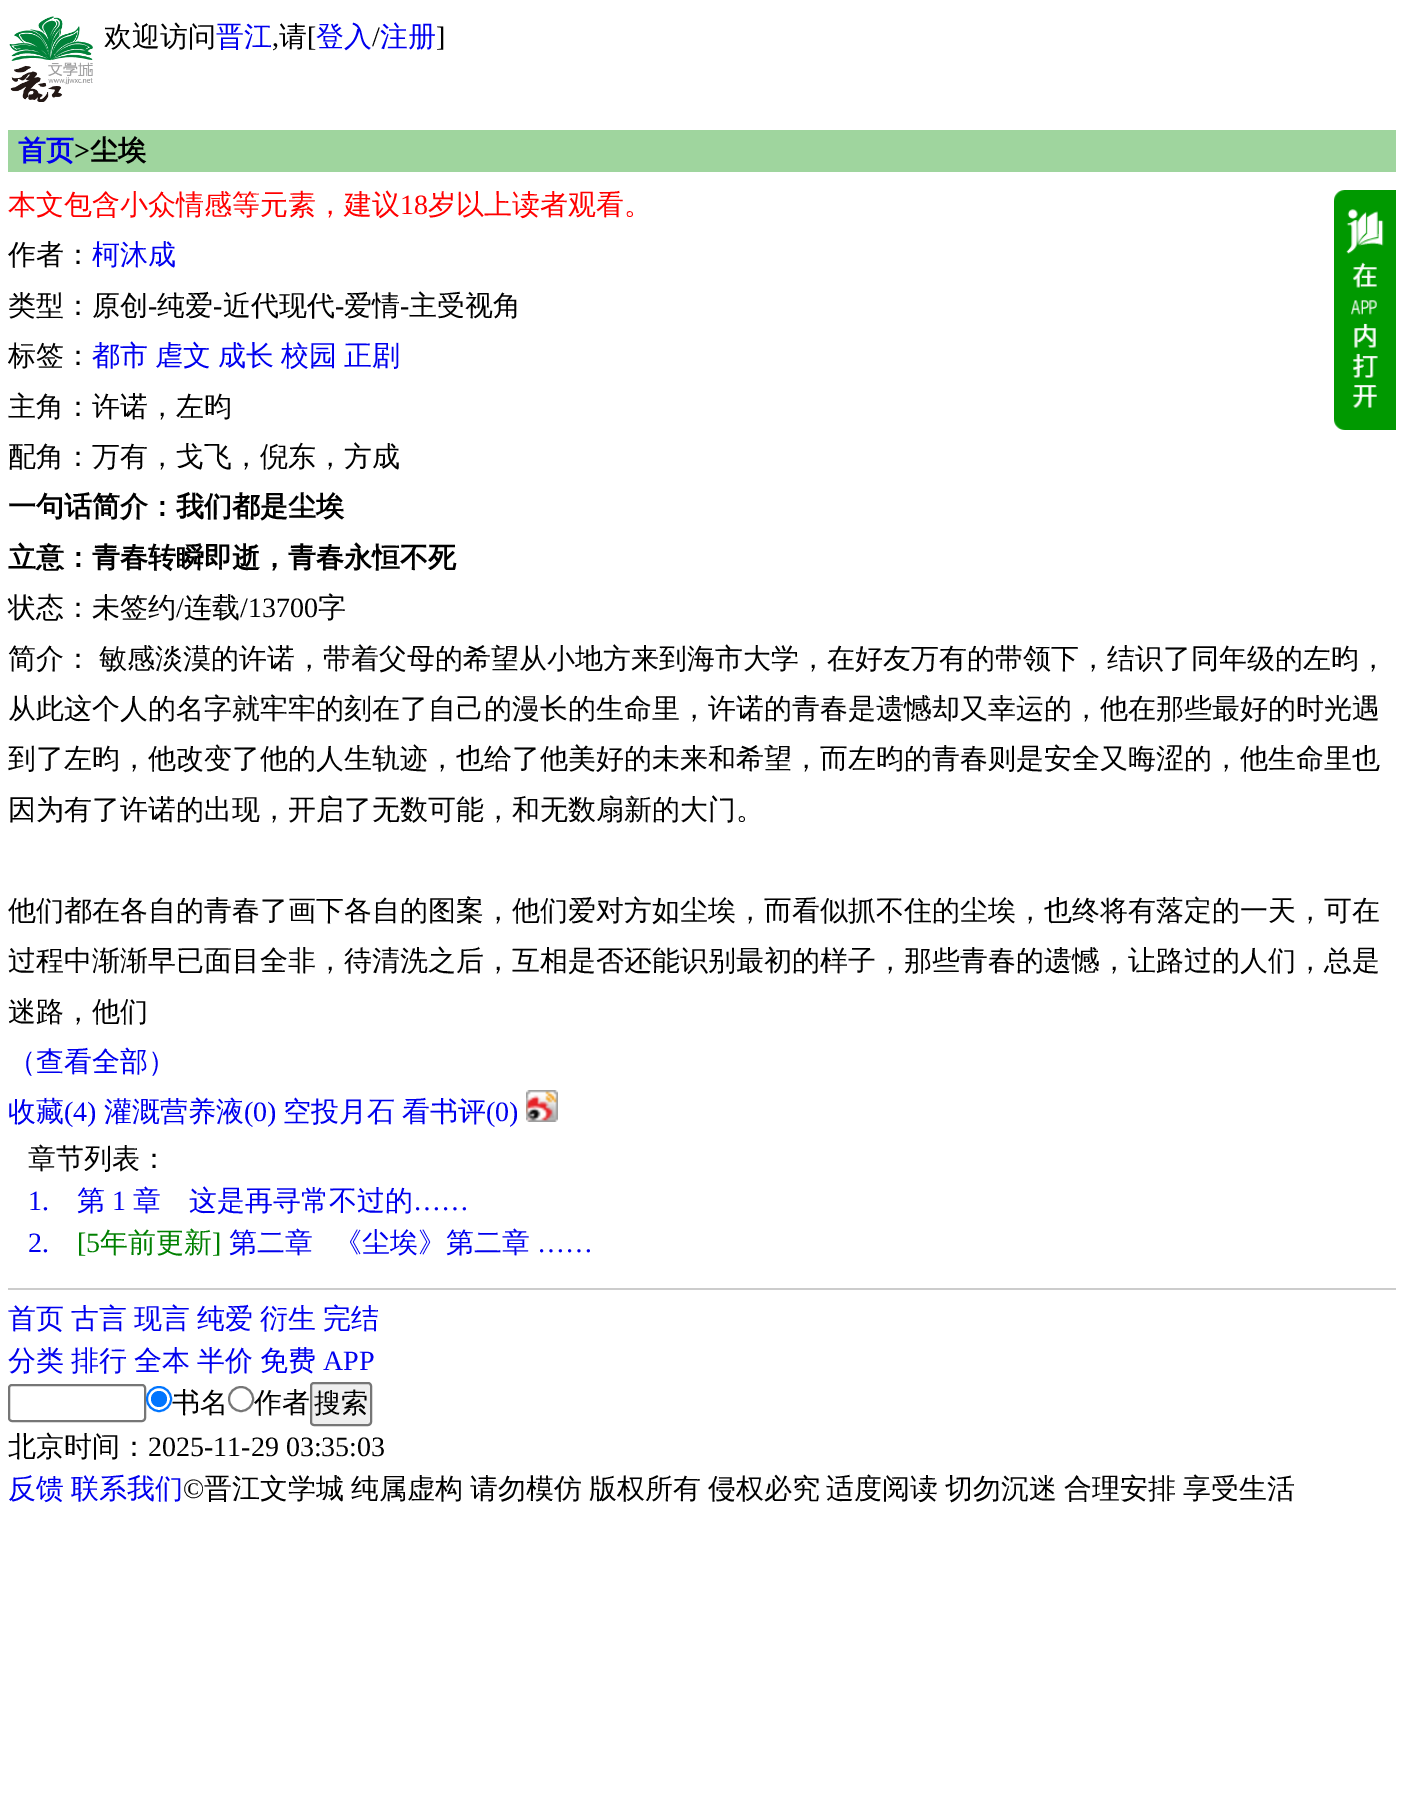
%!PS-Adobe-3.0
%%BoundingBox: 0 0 1403 1809
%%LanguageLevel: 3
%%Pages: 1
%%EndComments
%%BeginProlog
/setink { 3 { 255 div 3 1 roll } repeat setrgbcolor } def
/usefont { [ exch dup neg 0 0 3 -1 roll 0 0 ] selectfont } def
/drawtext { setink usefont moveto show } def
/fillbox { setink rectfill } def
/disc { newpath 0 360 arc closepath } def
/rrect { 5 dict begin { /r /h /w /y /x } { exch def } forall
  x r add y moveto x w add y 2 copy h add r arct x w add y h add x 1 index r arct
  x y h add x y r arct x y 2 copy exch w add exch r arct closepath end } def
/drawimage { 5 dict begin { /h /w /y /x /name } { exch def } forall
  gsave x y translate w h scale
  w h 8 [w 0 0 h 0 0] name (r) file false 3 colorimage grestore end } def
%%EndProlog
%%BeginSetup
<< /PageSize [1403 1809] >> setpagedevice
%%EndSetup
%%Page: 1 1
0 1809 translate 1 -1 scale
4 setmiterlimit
0 0 1403 1809 255 255 255 fillbox
(assets/img1.rgb) 9 16 84 86 drawimage
(欢迎访问) 104 46 /WenQuanYiZenHei-Medium 28 0 0 0 drawtext
(晋江) 216 46 /WenQuanYiZenHei-Medium 28 0 0 238 drawtext
(,) 272 46 /LiberationSerif-Regular 28 0 0 0 drawtext
(请) 279 46 /WenQuanYiZenHei-Medium 28 0 0 0 drawtext
([) 307 46 /LiberationSerif-Regular 28 0 0 0 drawtext
(登入) 316 46 /WenQuanYiZenHei-Medium 28 0 0 238 drawtext
(/) 372 46 /LiberationSerif-Regular 28 0 0 0 drawtext
(注册) 380 46 /WenQuanYiZenHei-Medium 28 0 0 238 drawtext
(]) 436 46 /LiberationSerif-Regular 28 0 0 0 drawtext
8 130 1388 42 159 213 158 fillbox
(首页) 18 160 /WenQuanYiZenHei-Bold 28 0 0 238 drawtext
(>) 74 160 /LiberationSerif-Bold 28 0 0 0 drawtext
(尘埃) 90 160 /WenQuanYiZenHei-Bold 28 0 0 0 drawtext
(本文包含小众情感等元素，建议) 8 214 /WenQuanYiZenHei-Medium 28 255 0 0 drawtext
(18) 400 214 /LiberationSerif-Regular 28 255 0 0 drawtext
(岁以上读者观看。) 428 214 /WenQuanYiZenHei-Medium 28 255 0 0 drawtext
(作者：) 8 264 /WenQuanYiZenHei-Medium 28 0 0 0 drawtext
(柯沐成) 92 264 /WenQuanYiZenHei-Medium 28 0 0 238 drawtext
(assets/img2.rgb) 1334 190 62 240 drawimage
(类型：原创) 8 315 /WenQuanYiZenHei-Medium 28 0 0 0 drawtext
(-) 148 315 /LiberationSerif-Regular 28 0 0 0 drawtext
(纯爱) 157 315 /WenQuanYiZenHei-Medium 28 0 0 0 drawtext
(-) 213 315 /LiberationSerif-Regular 28 0 0 0 drawtext
(近代现代) 223 315 /WenQuanYiZenHei-Medium 28 0 0 0 drawtext
(-) 335 315 /LiberationSerif-Regular 28 0 0 0 drawtext
(爱情) 344 315 /WenQuanYiZenHei-Medium 28 0 0 0 drawtext
(-) 400 315 /LiberationSerif-Regular 28 0 0 0 drawtext
(主受视角) 409 315 /WenQuanYiZenHei-Medium 28 0 0 0 drawtext
(标签：) 8 365 /WenQuanYiZenHei-Medium 28 0 0 0 drawtext
(都市) 92 365 /WenQuanYiZenHei-Medium 28 0 0 238 drawtext
(虐文) 155 365 /WenQuanYiZenHei-Medium 28 0 0 238 drawtext
(成长) 218 365 /WenQuanYiZenHei-Medium 28 0 0 238 drawtext
(校园) 281 365 /WenQuanYiZenHei-Medium 28 0 0 238 drawtext
(正剧) 344 365 /WenQuanYiZenHei-Medium 28 0 0 238 drawtext
(主角：许诺，左昀) 8 416 /WenQuanYiZenHei-Medium 28 0 0 0 drawtext
(配角：万有，戈飞，倪东，方成) 8 466 /WenQuanYiZenHei-Medium 28 0 0 0 drawtext
(一句话简介：我们都是尘埃) 8 516 /WenQuanYiZenHei-Bold 28 0 0 0 drawtext
(立意：青春转瞬即逝，青春永恒不死) 8 567 /WenQuanYiZenHei-Bold 28 0 0 0 drawtext
(状态：未签约) 8 617 /WenQuanYiZenHei-Medium 28 0 0 0 drawtext
(/) 176 617 /LiberationSerif-Regular 28 0 0 0 drawtext
(连载) 184 617 /WenQuanYiZenHei-Medium 28 0 0 0 drawtext
(/13700) 240 617 /LiberationSerif-Regular 28 0 0 0 drawtext
(字) 318 617 /WenQuanYiZenHei-Medium 28 0 0 0 drawtext
(简介：) 8 668 /WenQuanYiZenHei-Medium 28 0 0 0 drawtext
(敏感淡漠的许诺，带着父母的希望从小地方来到海市大学，在好友万有的带领下，结识了同年级的左昀，) 99 668 /WenQuanYiZenHei-Medium 28 0 0 0 drawtext
(从此这个人的名字就牢牢的刻在了自己的漫长的生命里，许诺的青春是遗憾却又幸运的，他在那些最好的时光遇) 8 718 /WenQuanYiZenHei-Medium 28 0 0 0 drawtext
(到了左昀，他改变了他的人生轨迹，也给了他美好的未来和希望，而左昀的青春则是安全又晦涩的，他生命里也) 8 768 /WenQuanYiZenHei-Medium 28 0 0 0 drawtext
(因为有了许诺的出现，开启了无数可能，和无数扇新的大门。) 8 819 /WenQuanYiZenHei-Medium 28 0 0 0 drawtext
(他们都在各自的青春了画下各自的图案，他们爱对方如尘埃，而看似抓不住的尘埃，也终将有落定的一天，可在) 8 920 /WenQuanYiZenHei-Medium 28 0 0 0 drawtext
(过程中渐渐早已面目全非，待清洗之后，互相是否还能识别最初的样子，那些青春的遗憾，让路过的人们，总是) 8 970 /WenQuanYiZenHei-Medium 28 0 0 0 drawtext
(迷路，他们) 8 1021 /WenQuanYiZenHei-Medium 28 0 0 0 drawtext
(（查看全部）) 8 1071 /WenQuanYiZenHei-Medium 28 0 0 238 drawtext
(收藏) 8 1121 /WenQuanYiZenHei-Medium 28 0 0 238 drawtext
(\(4\)) 64 1121 /LiberationSerif-Regular 28 0 0 238 drawtext
(灌溉营养液) 104 1121 /WenQuanYiZenHei-Medium 28 0 0 238 drawtext
(\(0\)) 244 1121 /LiberationSerif-Regular 28 0 0 238 drawtext
(空投月石) 283 1121 /WenQuanYiZenHei-Medium 28 0 0 238 drawtext
(看书评) 402 1121 /WenQuanYiZenHei-Medium 28 0 0 238 drawtext
(\(0\)) 486 1121 /LiberationSerif-Regular 28 0 0 238 drawtext
(assets/img3.rgb) 526 1090 32 32 drawimage
(章节列表：) 28 1168 /WenQuanYiZenHei-Medium 28 0 0 0 drawtext
(1.) 28 1210 /LiberationSerif-Regular 28 0 0 238 drawtext
(第) 77 1210 /WenQuanYiZenHei-Medium 28 0 0 238 drawtext
(1) 112 1210 /LiberationSerif-Regular 28 0 0 238 drawtext
(章) 133 1210 /WenQuanYiZenHei-Medium 28 0 0 238 drawtext
(这是再寻常不过的) 189 1210 /WenQuanYiZenHei-Medium 28 0 0 238 drawtext
(……) 413 1210 /LiberationSerif-Regular 28 0 0 238 drawtext
(2.) 28 1252 /LiberationSerif-Regular 28 0 0 238 drawtext
([5) 77 1252 /LiberationSerif-Regular 28 0 128 0 drawtext
(年前更新) 100 1252 /WenQuanYiZenHei-Medium 28 0 128 0 drawtext
(]) 212 1252 /LiberationSerif-Regular 28 0 128 0 drawtext
(第二章) 229 1252 /WenQuanYiZenHei-Medium 28 0 0 238 drawtext
(《尘埃》第二章) 334 1252 /WenQuanYiZenHei-Medium 28 0 0 238 drawtext
(……) 537 1252 /LiberationSerif-Regular 28 0 0 238 drawtext
8 1288 1388 2 204 204 204 fillbox
(首页) 8 1328 /WenQuanYiZenHei-Medium 28 0 0 238 drawtext
(古言) 71 1328 /WenQuanYiZenHei-Medium 28 0 0 238 drawtext
(现言) 134 1328 /WenQuanYiZenHei-Medium 28 0 0 238 drawtext
(纯爱) 197 1328 /WenQuanYiZenHei-Medium 28 0 0 238 drawtext
(衍生) 260 1328 /WenQuanYiZenHei-Medium 28 0 0 238 drawtext
(完结) 323 1328 /WenQuanYiZenHei-Medium 28 0 0 238 drawtext
(分类) 8 1370 /WenQuanYiZenHei-Medium 28 0 0 238 drawtext
(排行) 71 1370 /WenQuanYiZenHei-Medium 28 0 0 238 drawtext
(全本) 134 1370 /WenQuanYiZenHei-Medium 28 0 0 238 drawtext
(半价) 197 1370 /WenQuanYiZenHei-Medium 28 0 0 238 drawtext
(免费) 260 1370 /WenQuanYiZenHei-Medium 28 0 0 238 drawtext
(APP) 323 1370 /LiberationSerif-Regular 28 0 0 238 drawtext
118 118 118 setink
2 setlinewidth
9 1385 136 36 3 rrect stroke
0 117 255 setink
159 1399 12 disc stroke
159 1399 8 disc fill
(书名) 172 1412 /WenQuanYiZenHei-Medium 28 0 0 0 drawtext
118 118 118 setink
241 1399 12 disc stroke
(作者) 254 1412 /WenQuanYiZenHei-Medium 28 0 0 0 drawtext
239 239 239 setink
311 1383 60 42 3 rrect gsave fill grestore
118 118 118 setink
stroke
(搜索) 314 1412 /WenQuanYiZenHei-Medium 27 0 0 0 drawtext
(北京时间：) 8 1456 /WenQuanYiZenHei-Medium 28 0 0 0 drawtext
(2025-11-29 03:35:03) 148 1456 /LiberationSerif-Regular 28 0 0 0 drawtext
(反馈) 8 1498 /WenQuanYiZenHei-Medium 28 0 0 238 drawtext
(联系我们) 71 1498 /WenQuanYiZenHei-Medium 28 0 0 238 drawtext
(©) 183 1498 /LiberationSerif-Regular 28 0 0 0 drawtext
/WenQuanYiZenHei-Medium 28 usefont
204 1498 moveto -1.5 0 32 (晋江文学城 纯属虚构 请勿模仿 版权所有 侵权必究 适度阅读 切勿沉迷 合理安排 享受生活) widthshow
showpage
%%EOF
